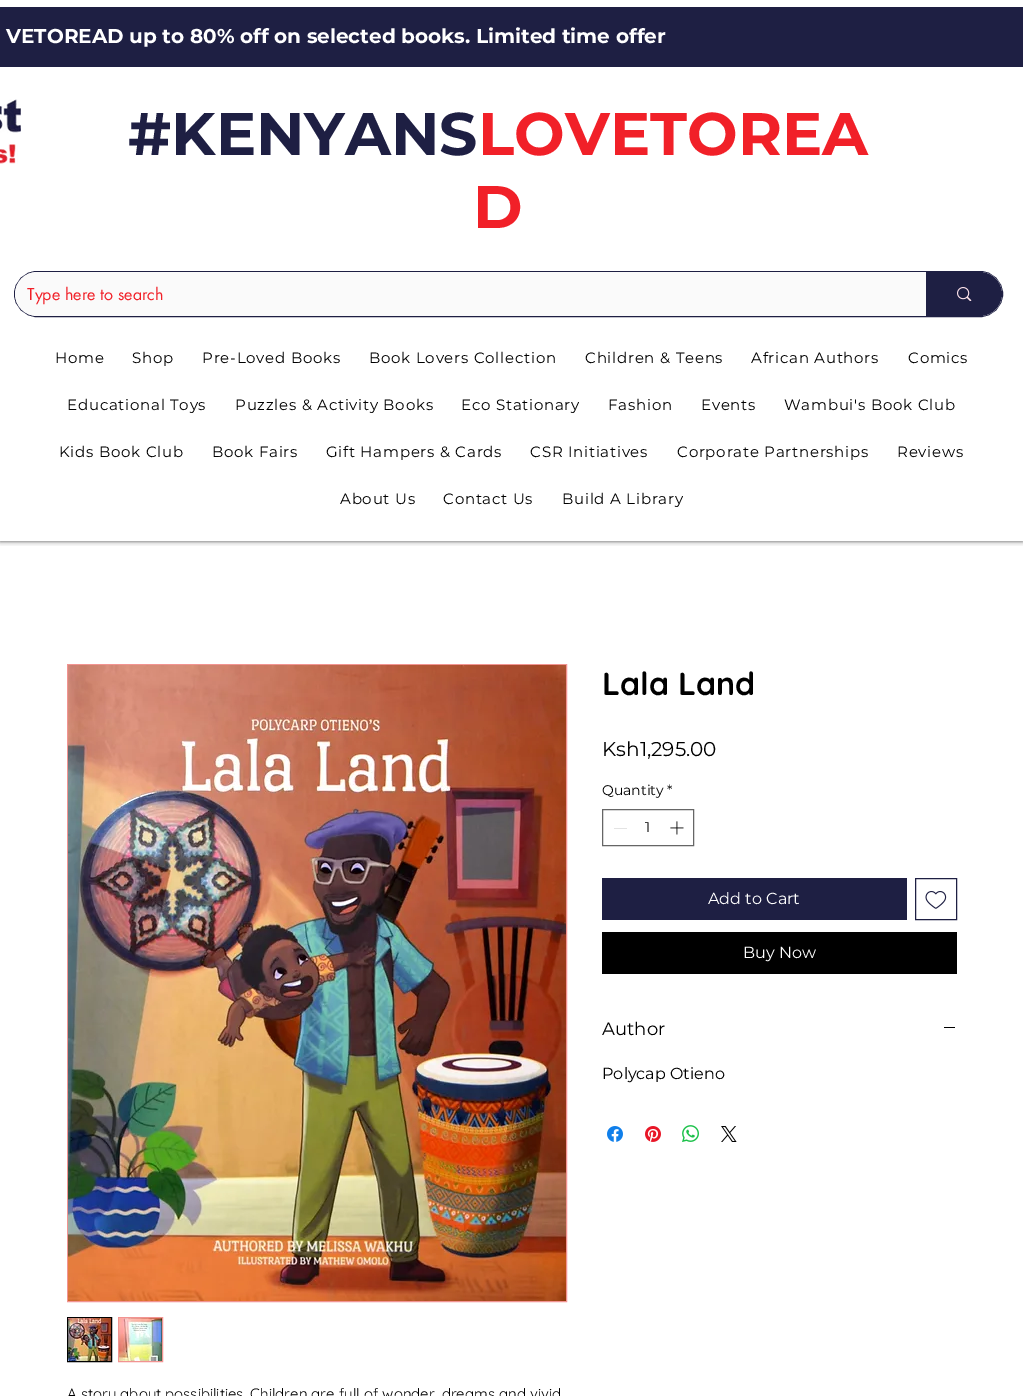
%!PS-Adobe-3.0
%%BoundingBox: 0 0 1023 1396
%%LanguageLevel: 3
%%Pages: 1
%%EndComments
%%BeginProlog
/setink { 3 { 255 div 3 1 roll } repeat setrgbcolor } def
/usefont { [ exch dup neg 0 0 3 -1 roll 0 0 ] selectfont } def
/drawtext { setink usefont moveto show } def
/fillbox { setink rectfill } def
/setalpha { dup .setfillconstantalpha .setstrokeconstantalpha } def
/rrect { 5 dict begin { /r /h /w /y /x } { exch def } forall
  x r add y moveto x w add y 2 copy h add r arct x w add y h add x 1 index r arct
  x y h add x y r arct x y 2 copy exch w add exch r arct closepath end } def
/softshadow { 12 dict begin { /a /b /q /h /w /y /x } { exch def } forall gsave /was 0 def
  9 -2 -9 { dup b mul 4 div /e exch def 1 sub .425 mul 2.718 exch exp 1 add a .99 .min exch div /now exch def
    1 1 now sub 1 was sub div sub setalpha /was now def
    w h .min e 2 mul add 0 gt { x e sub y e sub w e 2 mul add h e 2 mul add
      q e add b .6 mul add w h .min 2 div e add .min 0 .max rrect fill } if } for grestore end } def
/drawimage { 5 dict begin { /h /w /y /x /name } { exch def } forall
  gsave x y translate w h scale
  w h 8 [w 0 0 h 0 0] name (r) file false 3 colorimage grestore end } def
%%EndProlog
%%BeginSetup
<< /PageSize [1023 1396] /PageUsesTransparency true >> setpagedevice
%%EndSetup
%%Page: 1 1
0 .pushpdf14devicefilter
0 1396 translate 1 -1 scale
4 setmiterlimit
0 0 1023 1396 255 255 255 fillbox
gsave
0 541 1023 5 rectclip
0 0 0 setink
0 0 1023 541 0 2.5 0.7 softshadow
grestore
0 7 1023 60 30 31 67 fillbox
(VETOREAD up to 80% off on selected books. Limited time offer) 6 43 /Montserrat-Bold 20 255 255 255 drawtext
(assets/img1.rgb) 0 99 21 65 drawimage
(#KENYANS) 128 155 /Montserrat-Bold 60 30 31 67 drawtext
(LOVETOREA) 478 155 /Montserrat-Bold 60 241 32 40 drawtext
(D) 473 228 /Montserrat-Bold 60 241 32 40 drawtext
30 31 67 setink
14.5 271.5 988 45 22.5 rrect stroke
250 250 250 setink
15 272 987 44 22 rrect fill
(Type here to search) 27 300 /futura-Regular 16 241 32 40 drawtext
30 31 67 setink
926 272 moveto 980 272 lineto 992 272 1002 282 1002 294 curveto 1002 306 992 316 980 316 curveto 926 316 lineto closepath fill
(assets/img2.rgb) 957 287 15 14 drawimage
/Montserrat-Regular 15 usefont
0 0 0 setink
55 363 moveto 0.75 0 (Home) ashow
132 363 moveto 0.75 0 (Shop) ashow
202 363 moveto 0.75 0 (Pre-Loved Books) ashow
369 363 moveto 0.75 0 (Book Lovers Collection) ashow
585 363 moveto 0.75 0 (Children & Teens) ashow
751 363 moveto 0.75 0 (African Authors) ashow
908 363 moveto 0.75 0 (Comics) ashow
67 410 moveto 0.75 0 (Educational Toys) ashow
235 410 moveto 0.75 0 (Puzzles & Activity Books) ashow
461 410 moveto 0.75 0 (Eco Stationary) ashow
608 410 moveto 0.75 0 (Fashion) ashow
701 410 moveto 0.75 0 (Events) ashow
784 410 moveto 0.75 0 (Wambui's Book Club) ashow
59 457 moveto 0.75 0 (Kids Book Club) ashow
212 457 moveto 0.75 0 (Book Fairs) ashow
326 457 moveto 0.75 0 (Gift Hampers & Cards) ashow
530 457 moveto 0.75 0 (CSR Initiatives) ashow
677 457 moveto 0.75 0 (Corporate Partnerships) ashow
897 457 moveto 0.75 0 (Reviews) ashow
340 504 moveto 0.75 0 (About Us) ashow
443 504 moveto 0.75 0 (Contact Us) ashow
562 504 moveto 0.75 0 (Build A Library) ashow
(Lala Land) 602 695 /Quicksand-Bold 32 0 0 0 drawtext
(Ksh1,295.00) 602 756 /Montserrat-Regular 20 0 0 0 drawtext
(Quantity) 602 795 /Montserrat-Regular 14 0 0 0 drawtext
(*) 667 795 /Montserrat-Regular 14 0 0 0 drawtext
102 102 102 setink
602.5 809.5 91 36 rectstroke
614 828 13 1 227 227 227 fillbox
(1) 645 832 /Montserrat-Regular 14 0 0 0 drawtext
(assets/img3.rgb) 670 821 14 14 drawimage
602 878 305 42 30 31 67 fillbox
(Add to Cart) 708 904 /Montserrat-Regular 16 255 255 255 drawtext
30 31 67 setink
915.5 878.5 41 41 rectstroke
(assets/img4.rgb) 925 891 22 18 drawimage
602 932 355 42 0 0 0 fillbox
(Buy Now) 743 958 /Montserrat-Regular 16 255 255 255 drawtext
(Author) 602 1035 /Montserrat-Regular 18 0 0 0 drawtext
944 1027 11 1 0 0 0 fillbox
(Polycap Otieno) 602 1079 /Montserrat-Regular 16 0 0 0 drawtext
(assets/img5.rgb) 607 1126 16 16 drawimage
(assets/img6.rgb) 645 1126 16 16 drawimage
(assets/img7.rgb) 682 1125 17 17 drawimage
(assets/img8.rgb) 721 1126 16 16 drawimage
242 148 146 setink
67.5 664.5 499 637 rectstroke
(assets/img9.rgb) 68 665 498 636 drawimage
0 0 0 setink
67.5 1317.5 44 44 rectstroke
(assets/img10.rgb) 68 1318 43 43 drawimage
242 148 146 setink
118.5 1317.5 44 44 rectstroke
(assets/img11.rgb) 119 1318 43 43 drawimage
(A story about possibilities. Children are full of wonder, dreams and vivid) 67 1399 /Quicksand-Regular 15 0 0 0 drawtext
.poppdf14devicefilter showpage
%%EOF
